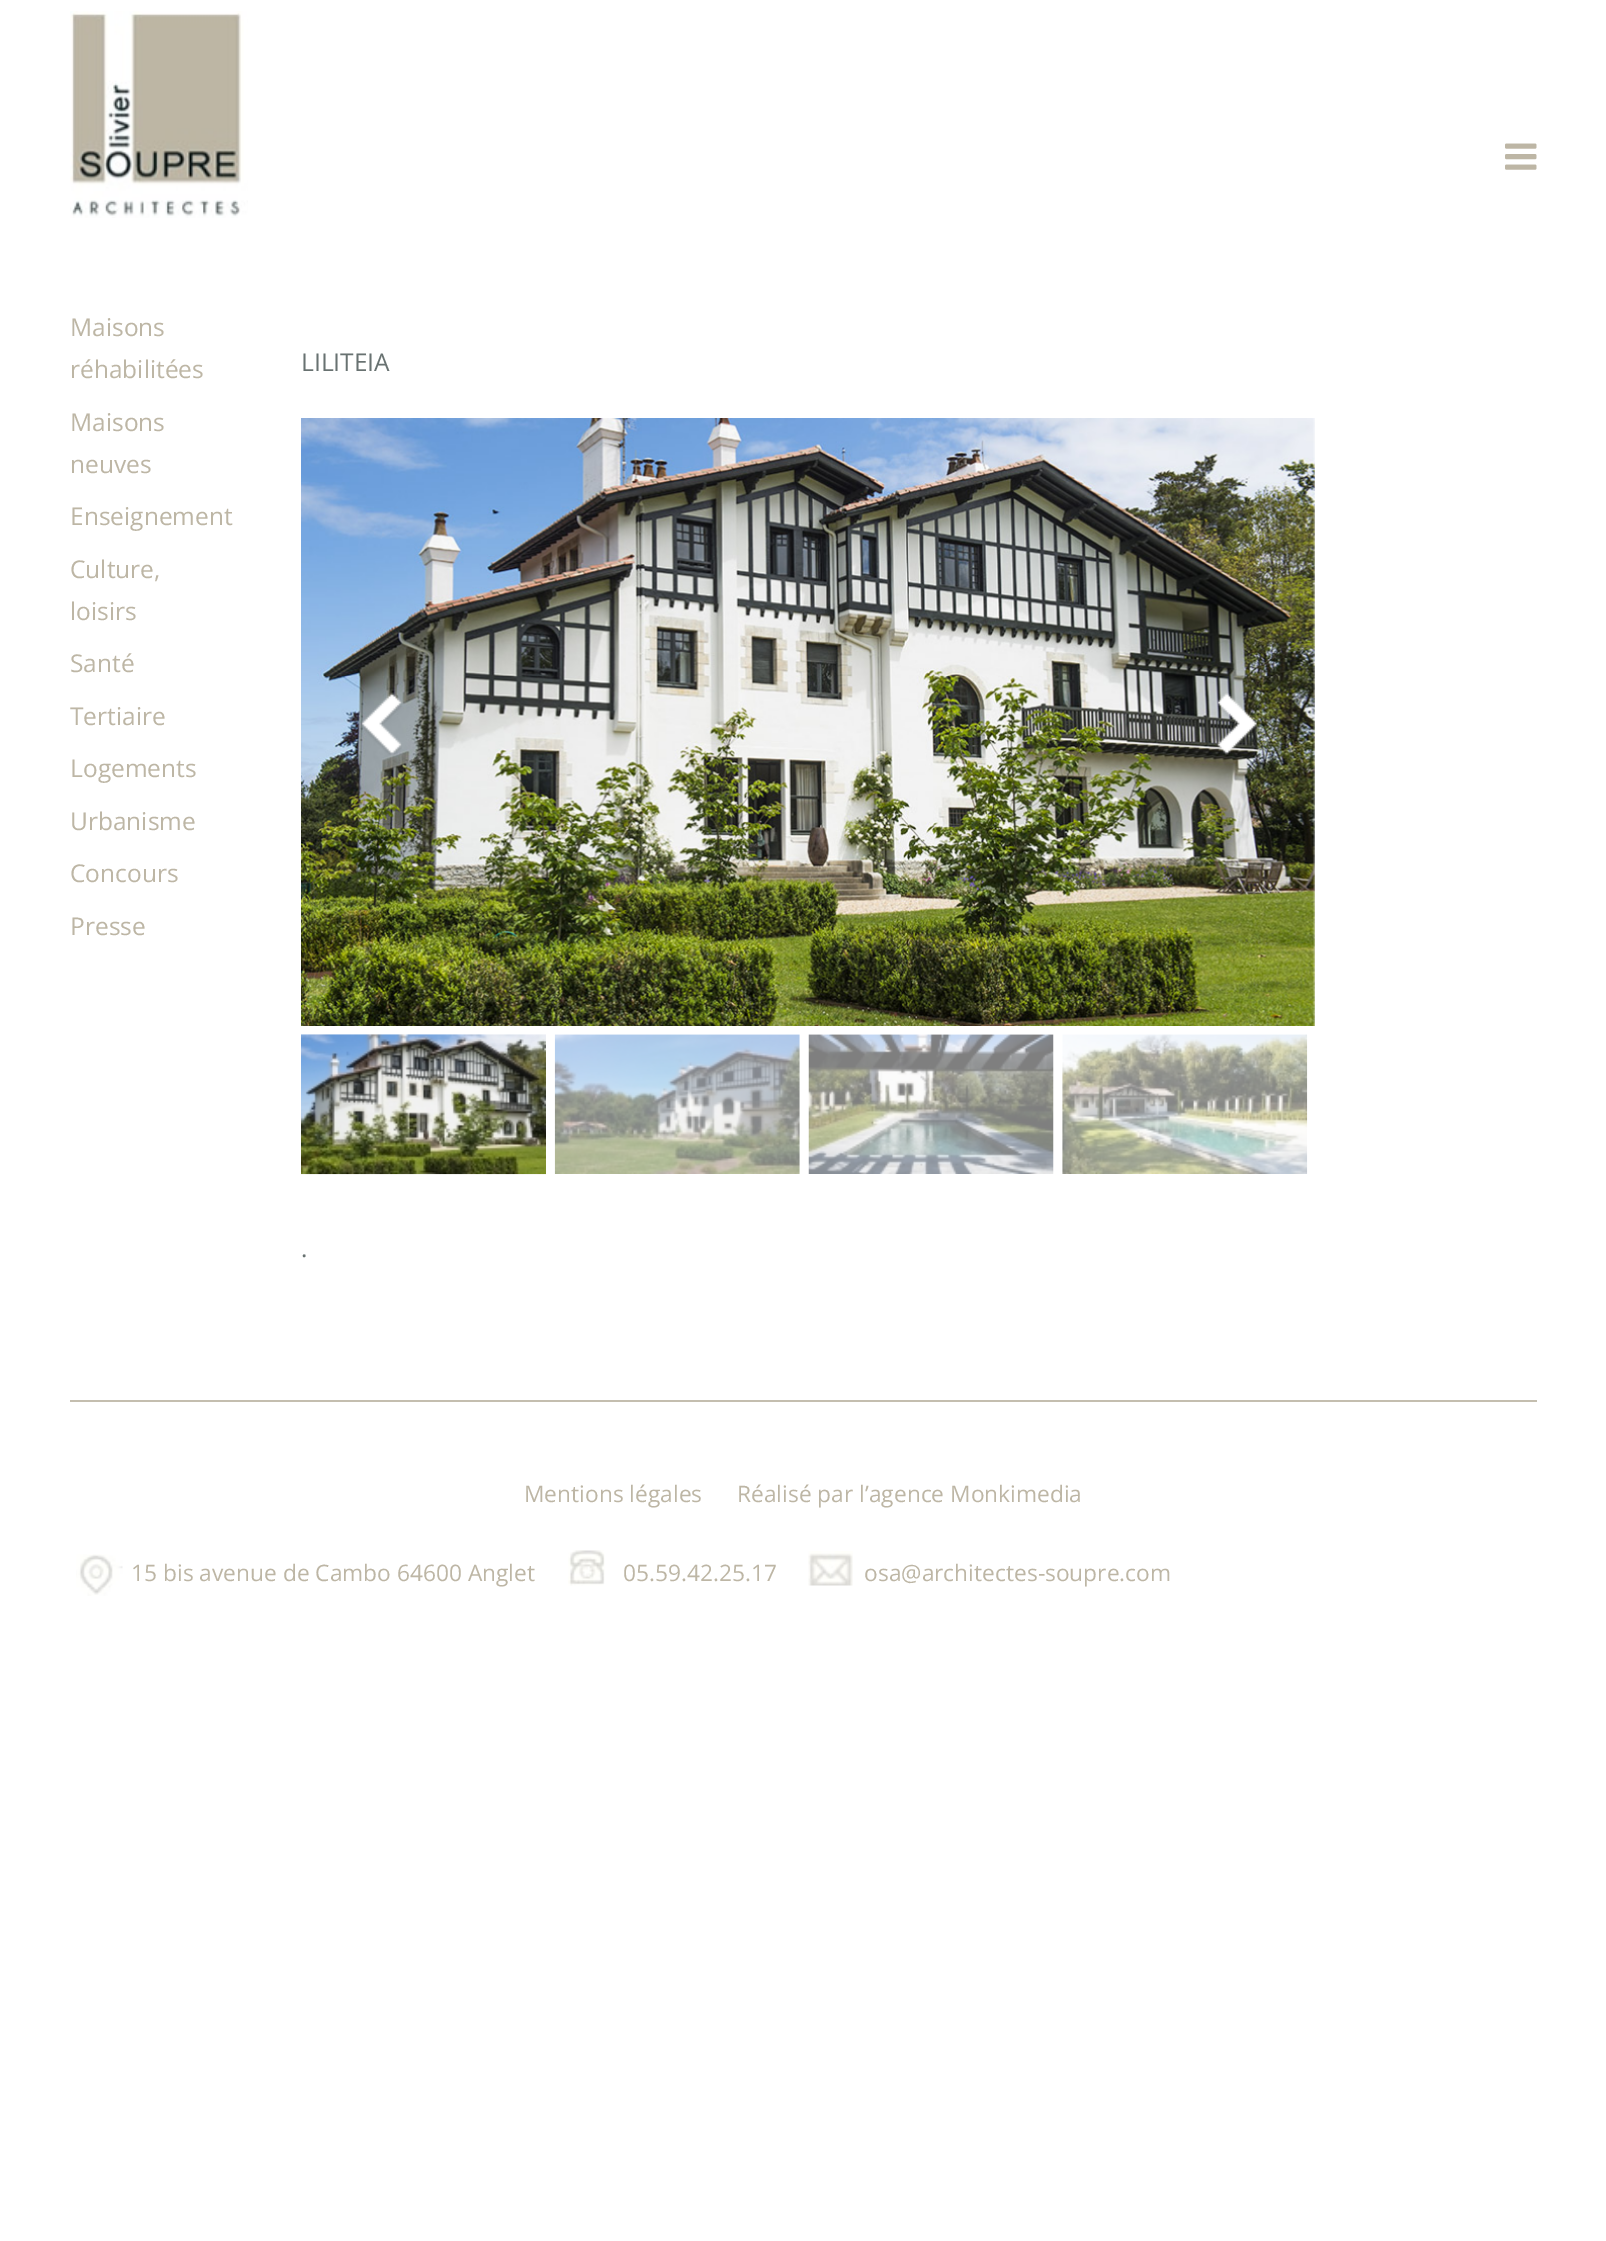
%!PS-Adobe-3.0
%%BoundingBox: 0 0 1606 2241
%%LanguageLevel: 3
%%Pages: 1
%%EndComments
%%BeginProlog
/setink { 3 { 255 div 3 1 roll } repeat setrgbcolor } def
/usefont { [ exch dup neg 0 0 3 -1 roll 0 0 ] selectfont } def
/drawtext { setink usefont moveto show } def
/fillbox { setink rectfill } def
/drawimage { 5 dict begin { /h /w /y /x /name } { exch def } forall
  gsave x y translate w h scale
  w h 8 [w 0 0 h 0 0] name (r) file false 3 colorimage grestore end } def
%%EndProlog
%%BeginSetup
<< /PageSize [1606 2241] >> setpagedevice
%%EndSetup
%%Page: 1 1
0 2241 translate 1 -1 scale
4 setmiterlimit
0 0 1606 2241 255 255 255 fillbox
(assets/img1.rgb) 70 11 178 207 drawimage
(assets/img2.rgb) 1505 143 32 27 drawimage
(Maisons) 70 336 /OpenSans-Regular 24.5 189 182 165 drawtext
(réhabilitées) 70 378 /OpenSans-Regular 24.5 189 182 165 drawtext
(Maisons) 70 431 /OpenSans-Regular 24.5 189 182 165 drawtext
(neuves) 70 473 /OpenSans-Regular 24.5 189 182 165 drawtext
(Enseignement) 70 525 /OpenSans-Regular 24.5 189 182 165 drawtext
(Culture,) 70 578 /OpenSans-Regular 24.5 189 182 165 drawtext
(loisirs) 70 620 /OpenSans-Regular 24.5 189 182 165 drawtext
(Santé) 70 672 /OpenSans-Regular 24.5 189 182 165 drawtext
(Tertiaire) 70 725 /OpenSans-Regular 24.5 189 182 165 drawtext
(Logements) 70 777 /OpenSans-Regular 24.5 189 182 165 drawtext
(Urbanisme) 70 830 /OpenSans-Regular 24.5 189 182 165 drawtext
(Concours) 70 882 /OpenSans-Regular 24.5 189 182 165 drawtext
(Presse) 70 935 /OpenSans-Regular 24.5 189 182 165 drawtext
(LILITEIA) 301 371 /OpenSans-Regular 24.5 104 114 113 drawtext
(assets/img3.rgb) 301 418 1014 608 drawimage
(assets/img4.rgb) 361 692 41 63 drawimage
(assets/img5.rgb) 1217 693 40 62 drawimage
(assets/img6.rgb) 301 1034 245 141 drawimage
(assets/img7.rgb) 554 1034 246 140 drawimage
(assets/img8.rgb) 808 1034 246 140 drawimage
(assets/img9.rgb) 1062 1034 246 140 drawimage
(.) 301 1257 /OpenSans-Regular 24.5 104 114 113 drawtext
70 1400 1467 2 196 190 175 fillbox
(Mentions légales) 524 1502 /OpenSans-Regular 22.75 189 182 165 drawtext
(Réalisé par l’agence Monkimedia) 737 1502 /OpenSans-Regular 22.75 189 182 165 drawtext
(assets/img10.rgb) 76 1554 47 42 drawimage
(15 bis avenue de Cambo 64600 Anglet) 131 1581 /OpenSans-Regular 22.75 189 182 165 drawtext
(assets/img11.rgb) 568 1550 37 36 drawimage
(05.59.42.25.17) 623 1581 /OpenSans-Regular 22.75 189 182 165 drawtext
(assets/img12.rgb) 808 1551 45 35 drawimage
(osa@architectes-soupre.com) 864 1581 /OpenSans-Regular 22.75 189 182 165 drawtext
showpage
%%EOF
